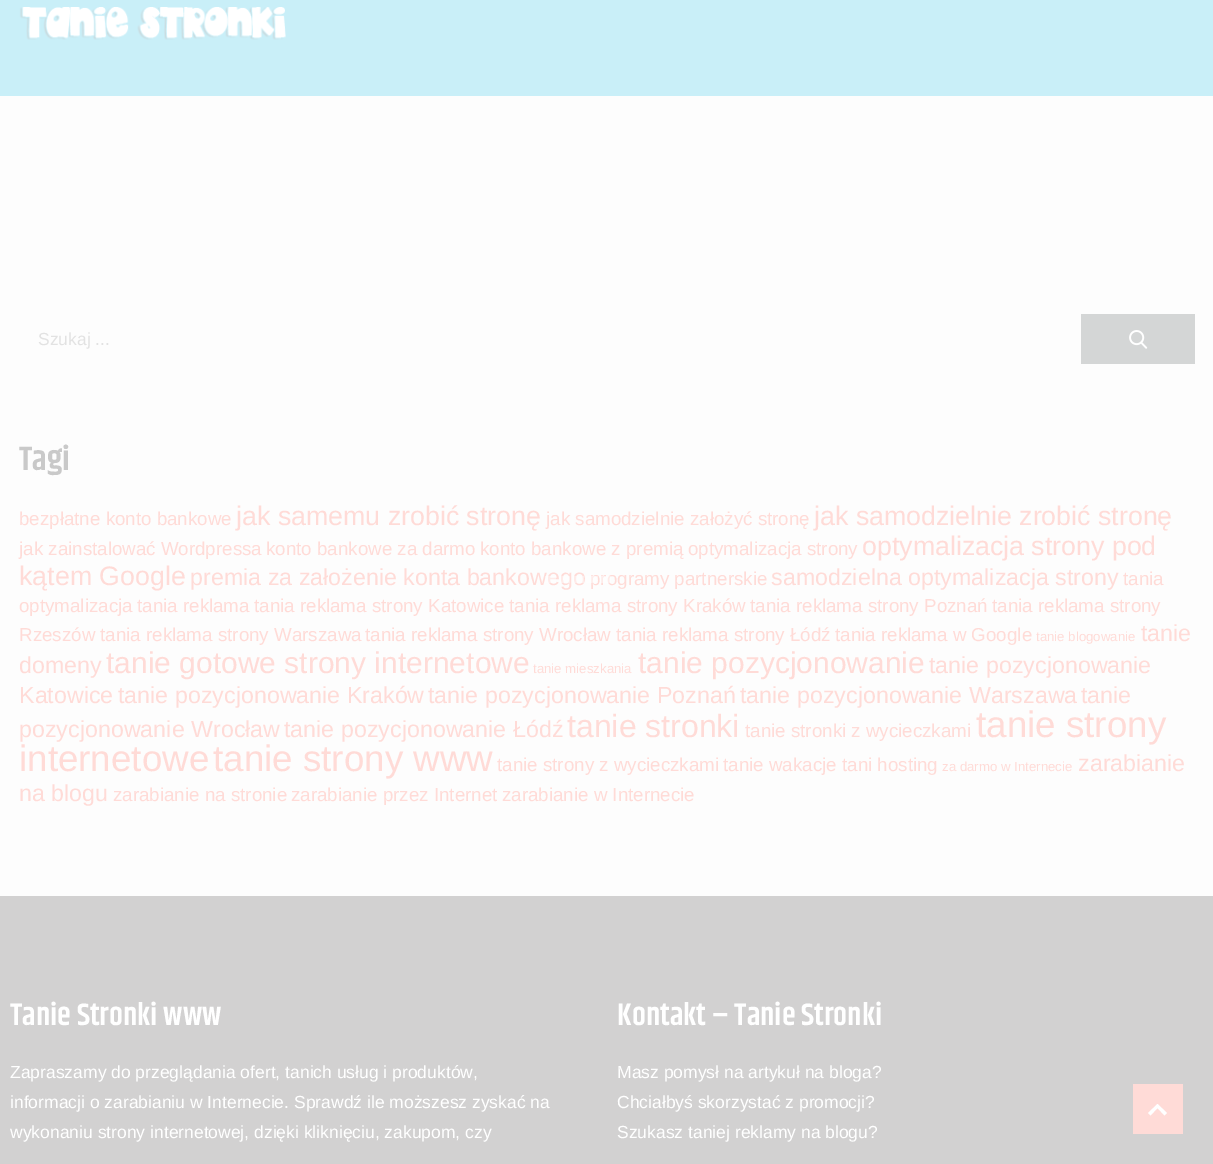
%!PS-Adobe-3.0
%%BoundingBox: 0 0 1213 1164
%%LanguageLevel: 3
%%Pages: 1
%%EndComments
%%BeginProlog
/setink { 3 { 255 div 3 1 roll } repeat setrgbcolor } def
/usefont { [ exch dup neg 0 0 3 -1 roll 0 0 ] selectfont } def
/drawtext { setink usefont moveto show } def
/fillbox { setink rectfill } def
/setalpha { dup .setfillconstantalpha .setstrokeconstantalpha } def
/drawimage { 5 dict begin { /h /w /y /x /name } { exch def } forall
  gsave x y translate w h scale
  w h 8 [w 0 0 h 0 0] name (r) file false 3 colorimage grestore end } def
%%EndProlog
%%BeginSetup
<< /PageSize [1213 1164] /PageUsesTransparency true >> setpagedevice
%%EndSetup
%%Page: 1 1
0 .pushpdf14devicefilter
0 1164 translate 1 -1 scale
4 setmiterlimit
0 0 1213 1164 253 253 253 fillbox
0 0 1213 96 201 239 248 fillbox
(assets/img1.rgb) 19 7 267 33 drawimage
(Szukaj ...) 38 345 /LiberationSans-Regular 17.5 226 226 226 drawtext
1081 314 114 50 212 214 214 fillbox
(assets/img2.rgb) 1129 330 19 19 drawimage
(Tagi) 19 470 /Khand-SemiBold 34 201 201 201 drawtext
(bezpłatne konto bankowe) 19 525 /LiberationSans-Regular 18.75 255 219 215 drawtext
(jak samemu zrobić stronę) 236 525 /LiberationSans-Regular 26.75 255 219 215 drawtext
(jak samodzielnie założyć stronę) 546 525 /LiberationSans-Regular 18.75 255 219 215 drawtext
(jak samodzielnie zrobić stronę) 814 525 /LiberationSans-Regular 26.75 255 219 215 drawtext
(jak zainstalować Wordpressa) 19 555 /LiberationSans-Regular 18.75 255 219 215 drawtext
(konto bankowe za darmo) 266 555 /LiberationSans-Regular 18.75 255 219 215 drawtext
(konto bankowe z premią) 480 555 /LiberationSans-Regular 18.75 255 219 215 drawtext
(optymalizacja strony) 688 555 /LiberationSans-Regular 18.75 255 219 215 drawtext
(optymalizacja strony pod) 862 555 /LiberationSans-Regular 26.75 255 219 215 drawtext
(kątem Google) 19 585 /LiberationSans-Regular 26.75 255 219 215 drawtext
(premia za założenie konta bankowego) 190 585 /LiberationSans-Regular 23.25 255 219 215 drawtext
(programy partnerskie) 590 585 /LiberationSans-Regular 18.75 255 219 215 drawtext
(samodzielna optymalizacja strony) 771 585 /LiberationSans-Regular 23.25 255 219 215 drawtext
(tania) 1123 585 /LiberationSans-Regular 18.75 255 219 215 drawtext
(optymalizacja) 19 612 /LiberationSans-Regular 18.75 255 219 215 drawtext
(tania reklama) 137 612 /LiberationSans-Regular 18.75 255 219 215 drawtext
(tania reklama strony Katowice) 254 612 /LiberationSans-Regular 18.75 255 219 215 drawtext
(tania reklama strony Kraków) 509 612 /LiberationSans-Regular 18.75 255 219 215 drawtext
(tania reklama strony Poznań) 750 612 /LiberationSans-Regular 18.75 255 219 215 drawtext
(tania reklama strony) 992 612 /LiberationSans-Regular 18.75 255 219 215 drawtext
(Rzeszów) 19 641 /LiberationSans-Regular 18.75 255 219 215 drawtext
(tania reklama strony Warszawa) 100 641 /LiberationSans-Regular 18.75 255 219 215 drawtext
(tania reklama strony Wrocław) 365 641 /LiberationSans-Regular 18.75 255 219 215 drawtext
(tania reklama strony Łódź) 616 641 /LiberationSans-Regular 18.75 255 219 215 drawtext
(tania reklama w Google) 835 641 /LiberationSans-Regular 18.75 255 219 215 drawtext
(tanie blogowanie) 1036 641 /LiberationSans-Regular 13.25 255 219 215 drawtext
(tanie) 1141 641 /LiberationSans-Regular 23.25 255 219 215 drawtext
(domeny) 19 673 /LiberationSans-Regular 23.25 255 219 215 drawtext
(tanie gotowe strony internetowe) 106 673 /LiberationSans-Regular 30 255 219 215 drawtext
(tanie mieszkania) 533 673 /LiberationSans-Regular 13.25 255 219 215 drawtext
(tanie pozycjonowanie) 638 673 /LiberationSans-Regular 30 255 219 215 drawtext
(tanie pozycjonowanie) 929 673 /LiberationSans-Regular 23.25 255 219 215 drawtext
(Katowice) 19 703 /LiberationSans-Regular 23.25 255 219 215 drawtext
(tanie pozycjonowanie Kraków) 118 703 /LiberationSans-Regular 23.25 255 219 215 drawtext
(tanie pozycjonowanie Poznań) 428 703 /LiberationSans-Regular 23.25 255 219 215 drawtext
(tanie pozycjonowanie Warszawa) 740 703 /LiberationSans-Regular 23.25 255 219 215 drawtext
(tanie) 1081 703 /LiberationSans-Regular 23.25 255 219 215 drawtext
(pozycjonowanie Wrocław) 19 737 /LiberationSans-Regular 23.25 255 219 215 drawtext
(tanie pozycjonowanie Łódź) 284 737 /LiberationSans-Regular 23.25 255 219 215 drawtext
(tanie stronki) 567 737 /LiberationSans-Regular 32 255 219 215 drawtext
(tanie stronki z wycieczkami) 745 737 /LiberationSans-Regular 18.75 255 219 215 drawtext
(tanie strony) 976 737 /LiberationSans-Regular 36.75 255 219 215 drawtext
(internetowe) 19 771 /LiberationSans-Regular 36.75 255 219 215 drawtext
(tanie strony www) 213 771 /LiberationSans-Regular 36.75 255 219 215 drawtext
(tanie strony z wycieczkami) 497 771 /LiberationSans-Regular 18.75 255 219 215 drawtext
(tanie wakacje) 723 771 /LiberationSans-Regular 18.75 255 219 215 drawtext
(tani hosting) 842 771 /LiberationSans-Regular 18.75 255 219 215 drawtext
(za darmo w Internecie) 942 771 /LiberationSans-Regular 13.25 255 219 215 drawtext
(zarabianie) 1078 771 /LiberationSans-Regular 23.25 255 219 215 drawtext
(na blogu) 19 801 /LiberationSans-Regular 23.25 255 219 215 drawtext
(zarabianie na stronie) 113 801 /LiberationSans-Regular 18.75 255 219 215 drawtext
(zarabianie przez Internet) 291 801 /LiberationSans-Regular 18.75 255 219 215 drawtext
(zarabianie w Internecie) 502 801 /LiberationSans-Regular 18.75 255 219 215 drawtext
0.45 setalpha
545 576 11 7 255 255 255 fillbox
559 576 11 7 255 255 255 fillbox
573 576 11 7 255 255 255 fillbox
586 576 12 7 255 255 255 fillbox
600 576 11 7 255 255 255 fillbox
1 setalpha
0 896 1213 268 210 209 209 fillbox
(Tanie Stronki www) 10 1025 /Khand-SemiBold 31.25 255 255 255 drawtext
(Zapraszamy do przeglądania ofert, tanich usług i produktów,) 10 1078 /LiberationSans-Regular 17.5 255 255 255 drawtext
(informacji o zarabianiu w Internecie. Sprawdź ile moższesz zyskać na) 10 1108 /LiberationSans-Regular 17.5 255 255 255 drawtext
(wykonaniu strony internetowej, dzięki kliknięciu, zakupom, czy) 10 1138 /LiberationSans-Regular 17.5 255 255 255 drawtext
(Kontakt – Tanie Stronki) 617 1025 /Khand-SemiBold 31.25 255 255 255 drawtext
(Masz pomysł na artykuł na bloga?) 617 1078 /LiberationSans-Regular 17.5 255 255 255 drawtext
(Chciałbyś skorzystać z promocji?) 617 1108 /LiberationSans-Regular 17.5 255 255 255 drawtext
(Szukasz taniej reklamy na blogu?) 617 1138 /LiberationSans-Regular 17.5 255 255 255 drawtext
1133 1084 50 50 255 219 215 fillbox
255 255 255 setink
1164.5 1115.5 moveto 1157.5 1108 lineto 1150.5 1115.5 lineto 1148 1113 lineto 1157.5 1104 lineto 1167 1113 lineto closepath fill
.poppdf14devicefilter showpage
%%EOF
